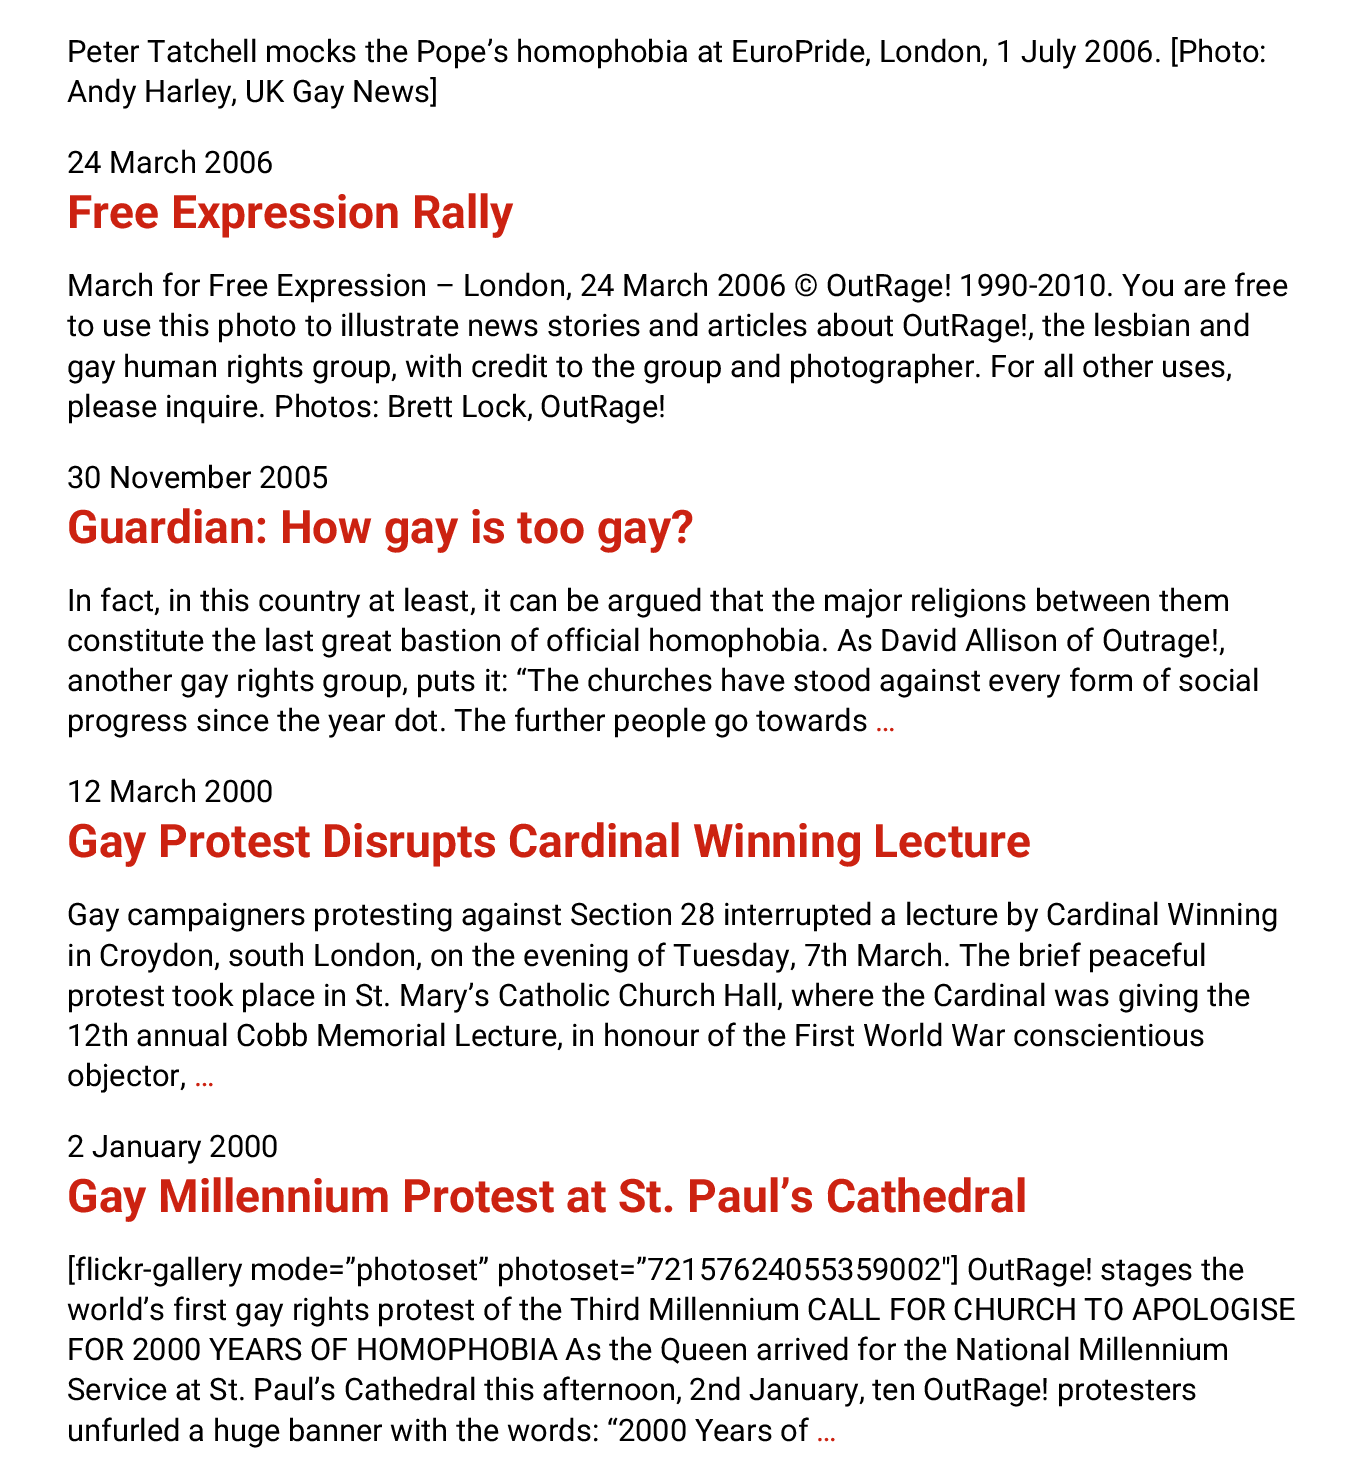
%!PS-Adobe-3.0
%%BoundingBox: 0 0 1368 1467
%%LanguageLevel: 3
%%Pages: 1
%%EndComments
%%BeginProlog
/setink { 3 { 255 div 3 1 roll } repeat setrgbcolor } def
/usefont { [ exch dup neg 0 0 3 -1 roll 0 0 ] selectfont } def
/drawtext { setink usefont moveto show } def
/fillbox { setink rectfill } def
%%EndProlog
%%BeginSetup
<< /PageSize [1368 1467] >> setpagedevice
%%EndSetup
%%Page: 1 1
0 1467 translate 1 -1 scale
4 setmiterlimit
0 0 1368 1467 255 255 255 fillbox
(Peter Tatchell mocks the Pope’s homophobia at EuroPride, London, 1 July 2006. [Photo:) 67 62 /Roboto-Regular 30.85 0 0 0 drawtext
(Andy Harley, UK Gay News]) 67 102 /Roboto-Regular 30.85 0 0 0 drawtext
(24 March 2006) 67 173 /Roboto-Regular 30.85 0 0 0 drawtext
(Free Expression Rally) 67 228 /Roboto-Bold 46.25 204 34 17 drawtext
(March for Free Expression – London, 24 March 2006 © OutRage! 1990-2010. You are free) 67 296 /Roboto-Regular 30.85 0 0 0 drawtext
(to use this photo to illustrate news stories and articles about OutRage!, the lesbian and) 67 336 /Roboto-Regular 30.85 0 0 0 drawtext
(gay human rights group, with credit to the group and photographer. For all other uses,) 67 377 /Roboto-Regular 30.85 0 0 0 drawtext
(please inquire. Photos: Brett Lock, OutRage!) 67 417 /Roboto-Regular 30.85 0 0 0 drawtext
(30 November 2005) 67 488 /Roboto-Regular 30.85 0 0 0 drawtext
(Guardian: How gay is too gay?) 67 543 /Roboto-Bold 46.25 204 34 17 drawtext
(In fact, in this country at least, it can be argued that the major religions between them) 67 611 /Roboto-Regular 30.85 0 0 0 drawtext
(constitute the last great bastion of official homophobia. As David Allison of Outrage!,) 67 651 /Roboto-Regular 30.85 0 0 0 drawtext
(another gay rights group, puts it: “The churches have stood against every form of social) 67 691 /Roboto-Regular 30.85 0 0 0 drawtext
(progress since the year dot. The further people go towards) 67 731 /Roboto-Regular 30.85 0 0 0 drawtext
(…) 875 731 /Roboto-Regular 30.85 204 34 17 drawtext
(12 March 2000) 67 802 /Roboto-Regular 30.85 0 0 0 drawtext
(Gay Protest Disrupts Cardinal Winning Lecture) 67 857 /Roboto-Bold 46.25 204 34 17 drawtext
(Gay campaigners protesting against Section 28 interrupted a lecture by Cardinal Winning) 67 925 /Roboto-Regular 30.85 0 0 0 drawtext
(in Croydon, south London, on the evening of Tuesday, 7th March. The brief peaceful) 67 966 /Roboto-Regular 30.85 0 0 0 drawtext
(protest took place in St. Mary’s Catholic Church Hall, where the Cardinal was giving the) 67 1006 /Roboto-Regular 30.85 0 0 0 drawtext
(12th annual Cobb Memorial Lecture, in honour of the First World War conscientious) 67 1046 /Roboto-Regular 30.85 0 0 0 drawtext
(objector,) 67 1086 /Roboto-Regular 30.85 0 0 0 drawtext
(…) 194 1086 /Roboto-Regular 30.85 204 34 17 drawtext
(2 January 2000) 67 1157 /Roboto-Regular 30.85 0 0 0 drawtext
(Gay Millennium Protest at St. Paul’s Cathedral) 67 1212 /Roboto-Bold 46.25 204 34 17 drawtext
([flickr-gallery mode=”photoset” photoset=”72157624055359002″] OutRage! stages the) 67 1280 /Roboto-Regular 30.85 0 0 0 drawtext
(world’s first gay rights protest of the Third Millennium CALL FOR CHURCH TO APOLOGISE) 67 1320 /Roboto-Regular 30.85 0 0 0 drawtext
(FOR 2000 YEARS OF HOMOPHOBIA As the Queen arrived for the National Millennium) 67 1360 /Roboto-Regular 30.85 0 0 0 drawtext
(Service at St. Paul’s Cathedral this afternoon, 2nd January, ten OutRage! protesters) 67 1400 /Roboto-Regular 30.85 0 0 0 drawtext
(unfurled a huge banner with the words: “2000 Years of) 67 1441 /Roboto-Regular 30.85 0 0 0 drawtext
(…) 816 1441 /Roboto-Regular 30.85 204 34 17 drawtext
showpage
%%EOF
